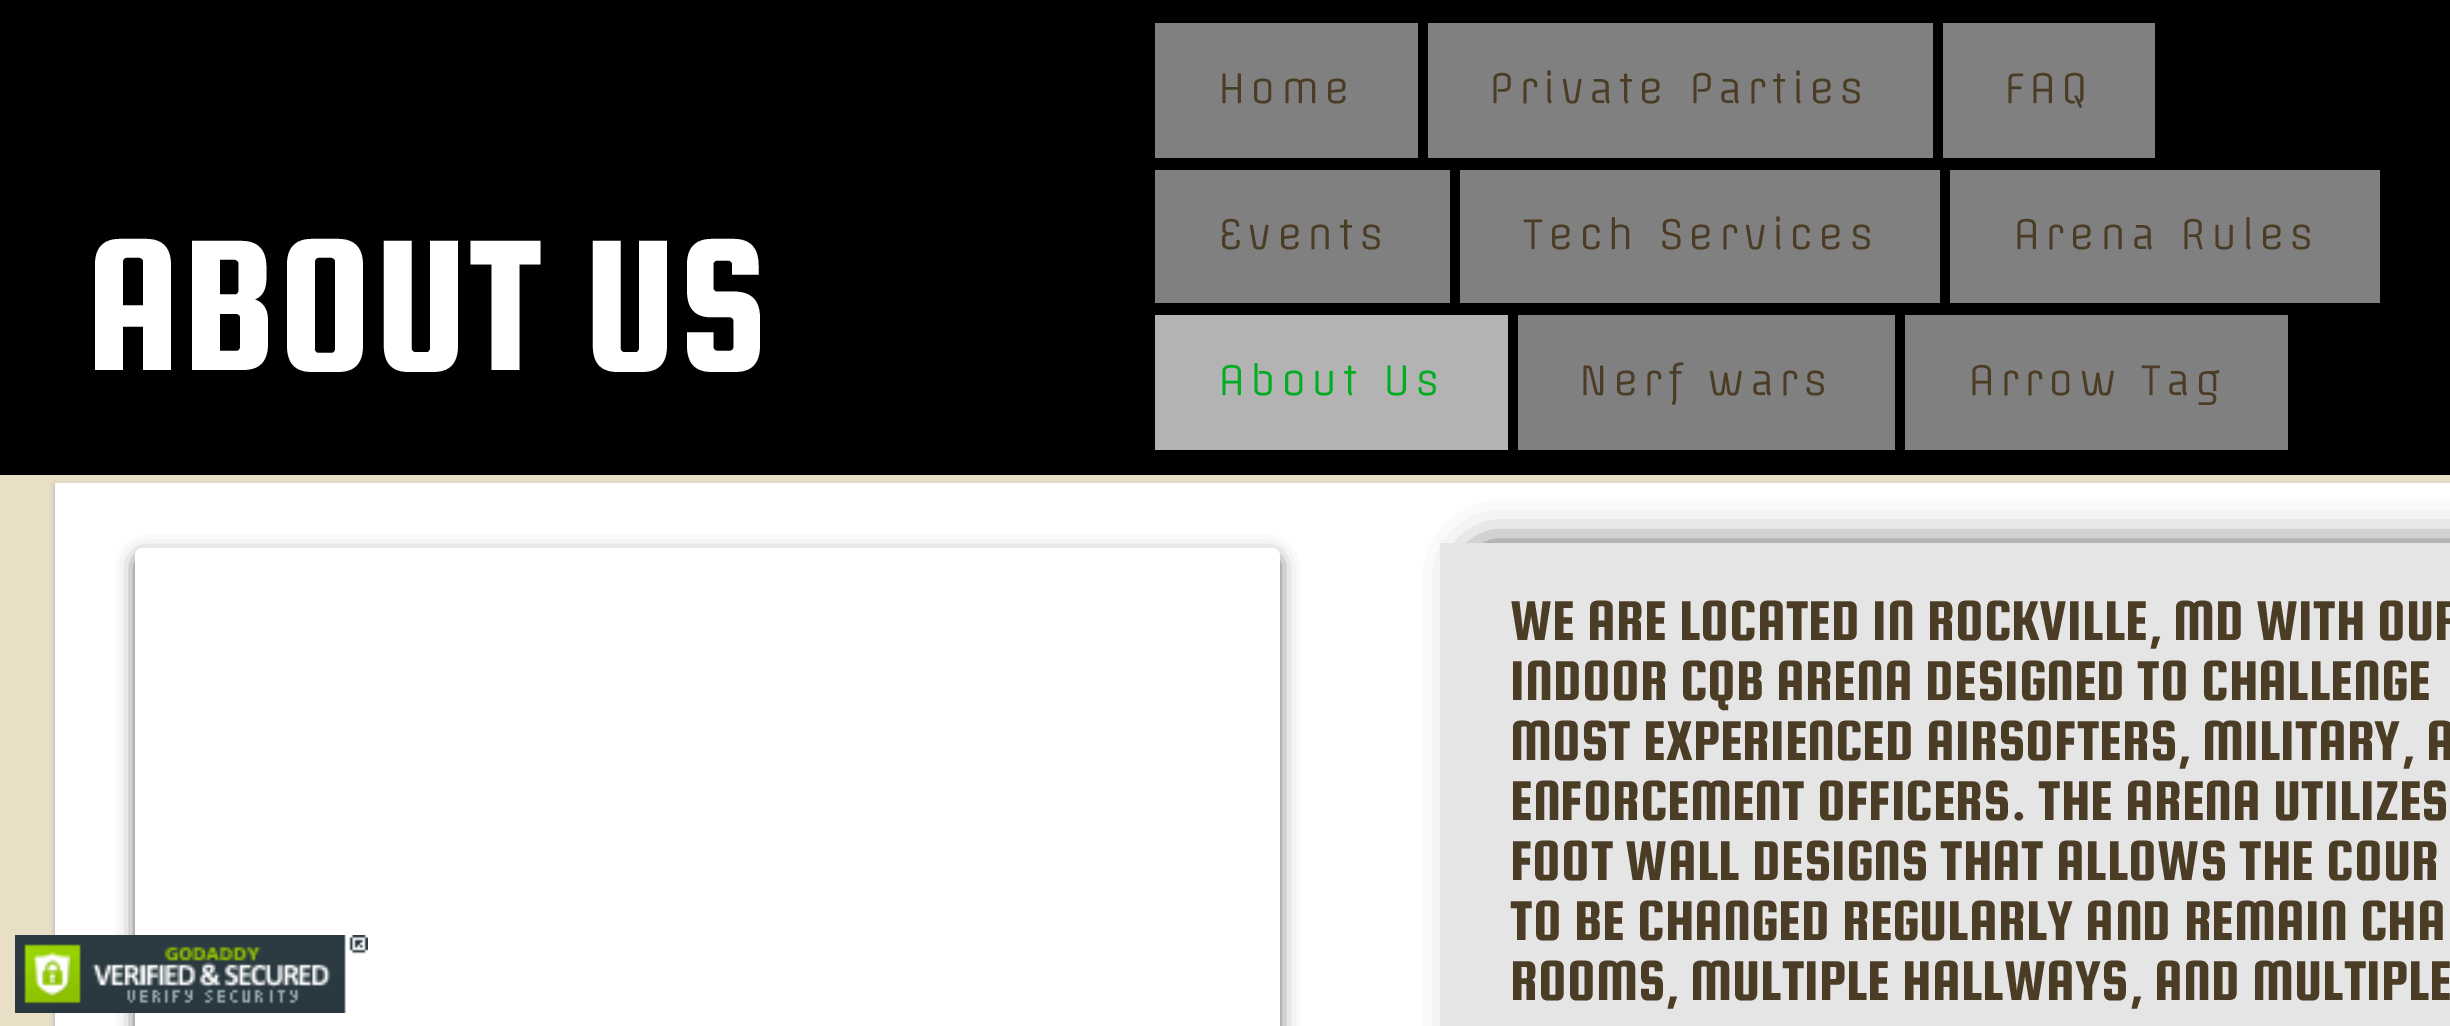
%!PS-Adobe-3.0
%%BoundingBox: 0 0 2450 1026
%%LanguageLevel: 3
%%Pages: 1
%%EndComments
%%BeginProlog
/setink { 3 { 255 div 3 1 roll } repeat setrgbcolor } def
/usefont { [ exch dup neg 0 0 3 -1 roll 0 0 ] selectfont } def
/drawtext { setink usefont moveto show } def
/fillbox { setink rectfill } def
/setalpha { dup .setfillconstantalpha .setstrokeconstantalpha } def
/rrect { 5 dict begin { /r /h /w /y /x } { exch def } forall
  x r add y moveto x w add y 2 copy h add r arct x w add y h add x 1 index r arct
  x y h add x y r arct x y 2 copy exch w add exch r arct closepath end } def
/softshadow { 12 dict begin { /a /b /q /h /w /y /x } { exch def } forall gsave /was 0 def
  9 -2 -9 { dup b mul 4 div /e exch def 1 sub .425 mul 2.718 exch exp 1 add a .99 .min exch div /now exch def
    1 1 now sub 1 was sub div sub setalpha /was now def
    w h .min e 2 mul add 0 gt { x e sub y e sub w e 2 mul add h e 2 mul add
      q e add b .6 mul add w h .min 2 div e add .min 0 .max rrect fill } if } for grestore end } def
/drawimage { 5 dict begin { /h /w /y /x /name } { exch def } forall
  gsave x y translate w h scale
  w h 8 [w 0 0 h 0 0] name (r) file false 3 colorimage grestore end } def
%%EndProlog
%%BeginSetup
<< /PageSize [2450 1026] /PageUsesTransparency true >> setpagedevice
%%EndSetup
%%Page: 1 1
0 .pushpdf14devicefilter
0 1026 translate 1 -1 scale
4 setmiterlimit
0 0 2450 1026 232 223 198 fillbox
0 0 2450 475 0 0 0 fillbox
(ABOUT US) 85 370 /SquadaOne-Regular 200 255 255 255 drawtext
1155 23 263 135 128 128 128 fillbox
/Offside-Regular 40 usefont
75 60 37 setink
1218 103 moveto 5 0 (Home) ashow
1428 23 505 135 128 128 128 fillbox
75 60 37 setink
1489 103 moveto 5 0 (Private Parties) ashow
1943 23 212 135 128 128 128 fillbox
75 60 37 setink
2004 103 moveto 5 0 (FAQ) ashow
1155 170 295 133 128 128 128 fillbox
75 60 37 setink
1218 249 moveto 5 0 (Events) ashow
1460 170 480 133 128 128 128 fillbox
75 60 37 setink
1523 249 moveto 5 0 (Tech Services) ashow
1950 170 430 133 128 128 128 fillbox
75 60 37 setink
2013 249 moveto 5 0 (Arena Rules) ashow
1155 315 353 135 179 179 179 fillbox
2 173 34 setink
1218 395 moveto 5 0 (About Us) ashow
1518 315 377 135 128 128 128 fillbox
75 60 37 setink
1579 395 moveto 5 0 (Nerf wars) ashow
1905 315 383 135 128 128 128 fillbox
75 60 37 setink
1968 395 moveto 5 0 (Arrow Tag) ashow
170 170 170 setink
55 485 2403 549 0 2.5 1 softshadow
55 483 2395 543 255 255 255 fillbox
50 50 50 setink
135 555 1145 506 8 9 0.75 softshadow
255 255 255 setink
143 548 moveto 1272 548 lineto 1276.5 548 1280 551.5 1280 556 curveto 1280 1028 lineto 135 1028 lineto 135 556 lineto 135 551.5 138.5 548 143 548 curveto closepath fill
0 0 0 setink
1465 543 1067 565 25 19 0.6 softshadow
1440 543 1010 483 229 229 229 fillbox
(WE ARE LOCATED IN ROCKVILLE, MD WITH OUR) 1510 640 /SquadaOne-Regular 60 75 60 37 drawtext
(INDOOR CQB ARENA DESIGNED TO CHALLENGE) 1510 700 /SquadaOne-Regular 60 75 60 37 drawtext
(MOST EXPERIENCED AIRSOFTERS, MILITARY, A) 1510 760 /SquadaOne-Regular 60 75 60 37 drawtext
(ENFORCEMENT OFFICERS. THE ARENA UTILIZES) 1510 820 /SquadaOne-Regular 60 75 60 37 drawtext
(FOOT WALL DESIGNS THAT ALLOWS THE COUR) 1510 880 /SquadaOne-Regular 60 75 60 37 drawtext
(TO BE CHANGED REGULARLY AND REMAIN CHA) 1510 940 /SquadaOne-Regular 60 75 60 37 drawtext
(ROOMS, MULTIPLE HALLWAYS, AND MULTIPLE) 1510 1000 /SquadaOne-Regular 60 75 60 37 drawtext
(assets/img1.rgb) 15 935 353 78 drawimage
.poppdf14devicefilter showpage
%%EOF
